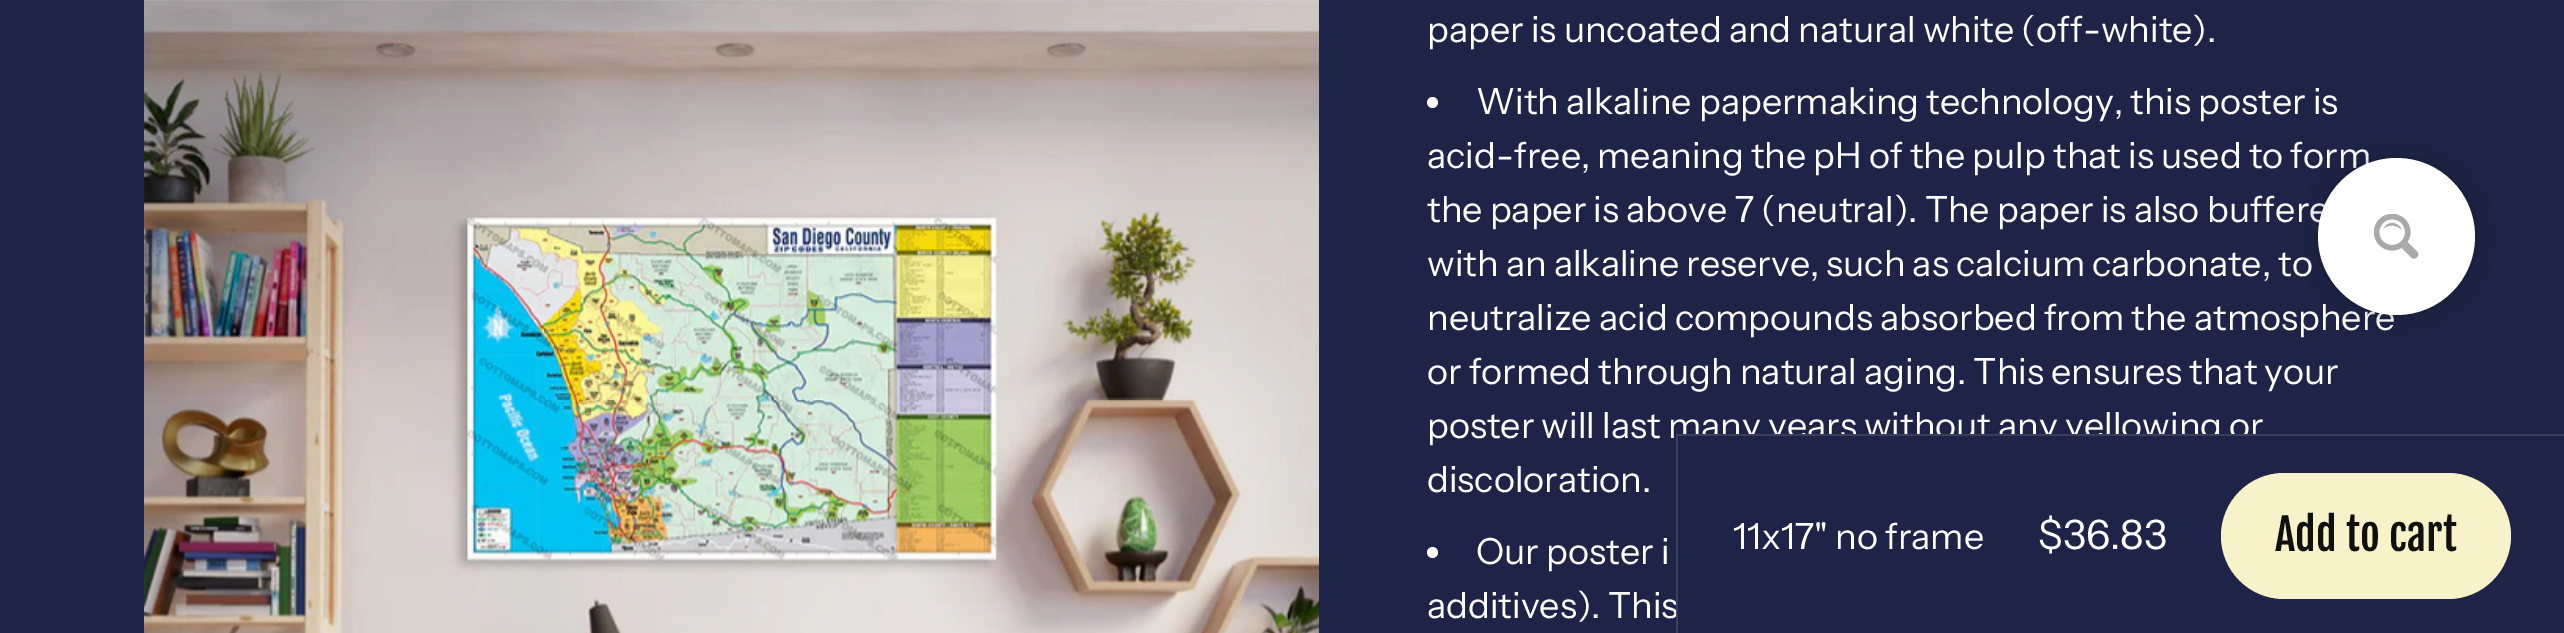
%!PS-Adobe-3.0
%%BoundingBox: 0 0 2564 633
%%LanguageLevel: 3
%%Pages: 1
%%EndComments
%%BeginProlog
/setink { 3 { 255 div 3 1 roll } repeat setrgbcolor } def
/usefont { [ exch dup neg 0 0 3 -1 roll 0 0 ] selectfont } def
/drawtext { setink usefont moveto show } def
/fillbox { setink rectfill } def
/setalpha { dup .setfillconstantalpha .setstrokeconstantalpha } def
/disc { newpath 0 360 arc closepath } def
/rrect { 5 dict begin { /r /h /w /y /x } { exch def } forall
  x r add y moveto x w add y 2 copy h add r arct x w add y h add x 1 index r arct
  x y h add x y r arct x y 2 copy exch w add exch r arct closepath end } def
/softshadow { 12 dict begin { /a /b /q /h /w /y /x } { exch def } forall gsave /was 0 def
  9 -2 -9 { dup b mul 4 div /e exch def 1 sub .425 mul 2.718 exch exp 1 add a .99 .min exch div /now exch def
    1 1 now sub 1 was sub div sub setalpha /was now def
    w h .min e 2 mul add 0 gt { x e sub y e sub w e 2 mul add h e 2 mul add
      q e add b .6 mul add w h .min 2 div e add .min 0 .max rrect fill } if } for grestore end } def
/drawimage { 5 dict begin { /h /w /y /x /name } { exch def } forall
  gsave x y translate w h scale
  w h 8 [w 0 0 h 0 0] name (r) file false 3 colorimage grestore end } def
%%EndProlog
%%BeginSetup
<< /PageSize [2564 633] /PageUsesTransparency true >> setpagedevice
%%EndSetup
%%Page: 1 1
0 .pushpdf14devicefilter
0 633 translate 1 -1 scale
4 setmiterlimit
0 0 2564 633 30 36 71 fillbox
(assets/img1.rgb) 144 0 1175 633 drawimage
(paper is uncoated and natural white \(off-white\).) 1427 42 /InstrumentSans-Regular 36 255 255 255 drawtext
1432.5 102.5 5.5 disc fill
(With alkaline papermaking technology, this poster is) 1476 114 /InstrumentSans-Regular 36 255 255 255 drawtext
(acid-free, meaning the pH of the pulp that is used to form) 1427 168 /InstrumentSans-Regular 36 255 255 255 drawtext
(the paper is above 7 \(neutral\). The paper is also buffere) 1427 222 /InstrumentSans-Regular 36 255 255 255 drawtext
(with an alkaline reserve, such as calcium carbonate, to) 1427 276 /InstrumentSans-Regular 36 255 255 255 drawtext
(neutralize acid compounds absorbed from the atmosphere) 1427 330 /InstrumentSans-Regular 36 255 255 255 drawtext
(or formed through natural aging. This ensures that your) 1427 384 /InstrumentSans-Regular 36 255 255 255 drawtext
(poster will last many years without any yellowing or) 1427 438 /InstrumentSans-Regular 36 255 255 255 drawtext
(discoloration.) 1427 492 /InstrumentSans-Regular 36 255 255 255 drawtext
1432.5 552.5 5.5 disc fill
(Our poster i) 1476 564 /InstrumentSans-Regular 36 255 255 255 drawtext
(additives\). This) 1427 618 /InstrumentSans-Regular 36 255 255 255 drawtext
1676 434 580 182 30 36 71 fillbox
57 62 93 setink
1676 434 moveto 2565 434 lineto 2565 436 lineto 1678 436 lineto closepath fill
0.12 setalpha
255 255 255 setink
1676 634 moveto 1676 434 lineto 1678 436 lineto 1678 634 lineto closepath fill
1 setalpha
(11x17" no frame) 1733 549 /InstrumentSans-Regular 36 255 255 255 drawtext
($36.83) 2038 549 /InstrumentSans-Regular 40.5 255 255 255 drawtext
248 242 203 setink
2221 473 290 126 63 rrect fill
(Add to cart) 2275 551 /FjallaOne-Regular 43 16 16 16 drawtext
0 0 0 setink
2336 176 121 121 60.5 17 1 softshadow
255 255 255 setink
2396.5 236.5 78.5 disc fill
(assets/img2.rgb) 2374 214 45 45 drawimage
.poppdf14devicefilter showpage
%%EOF
